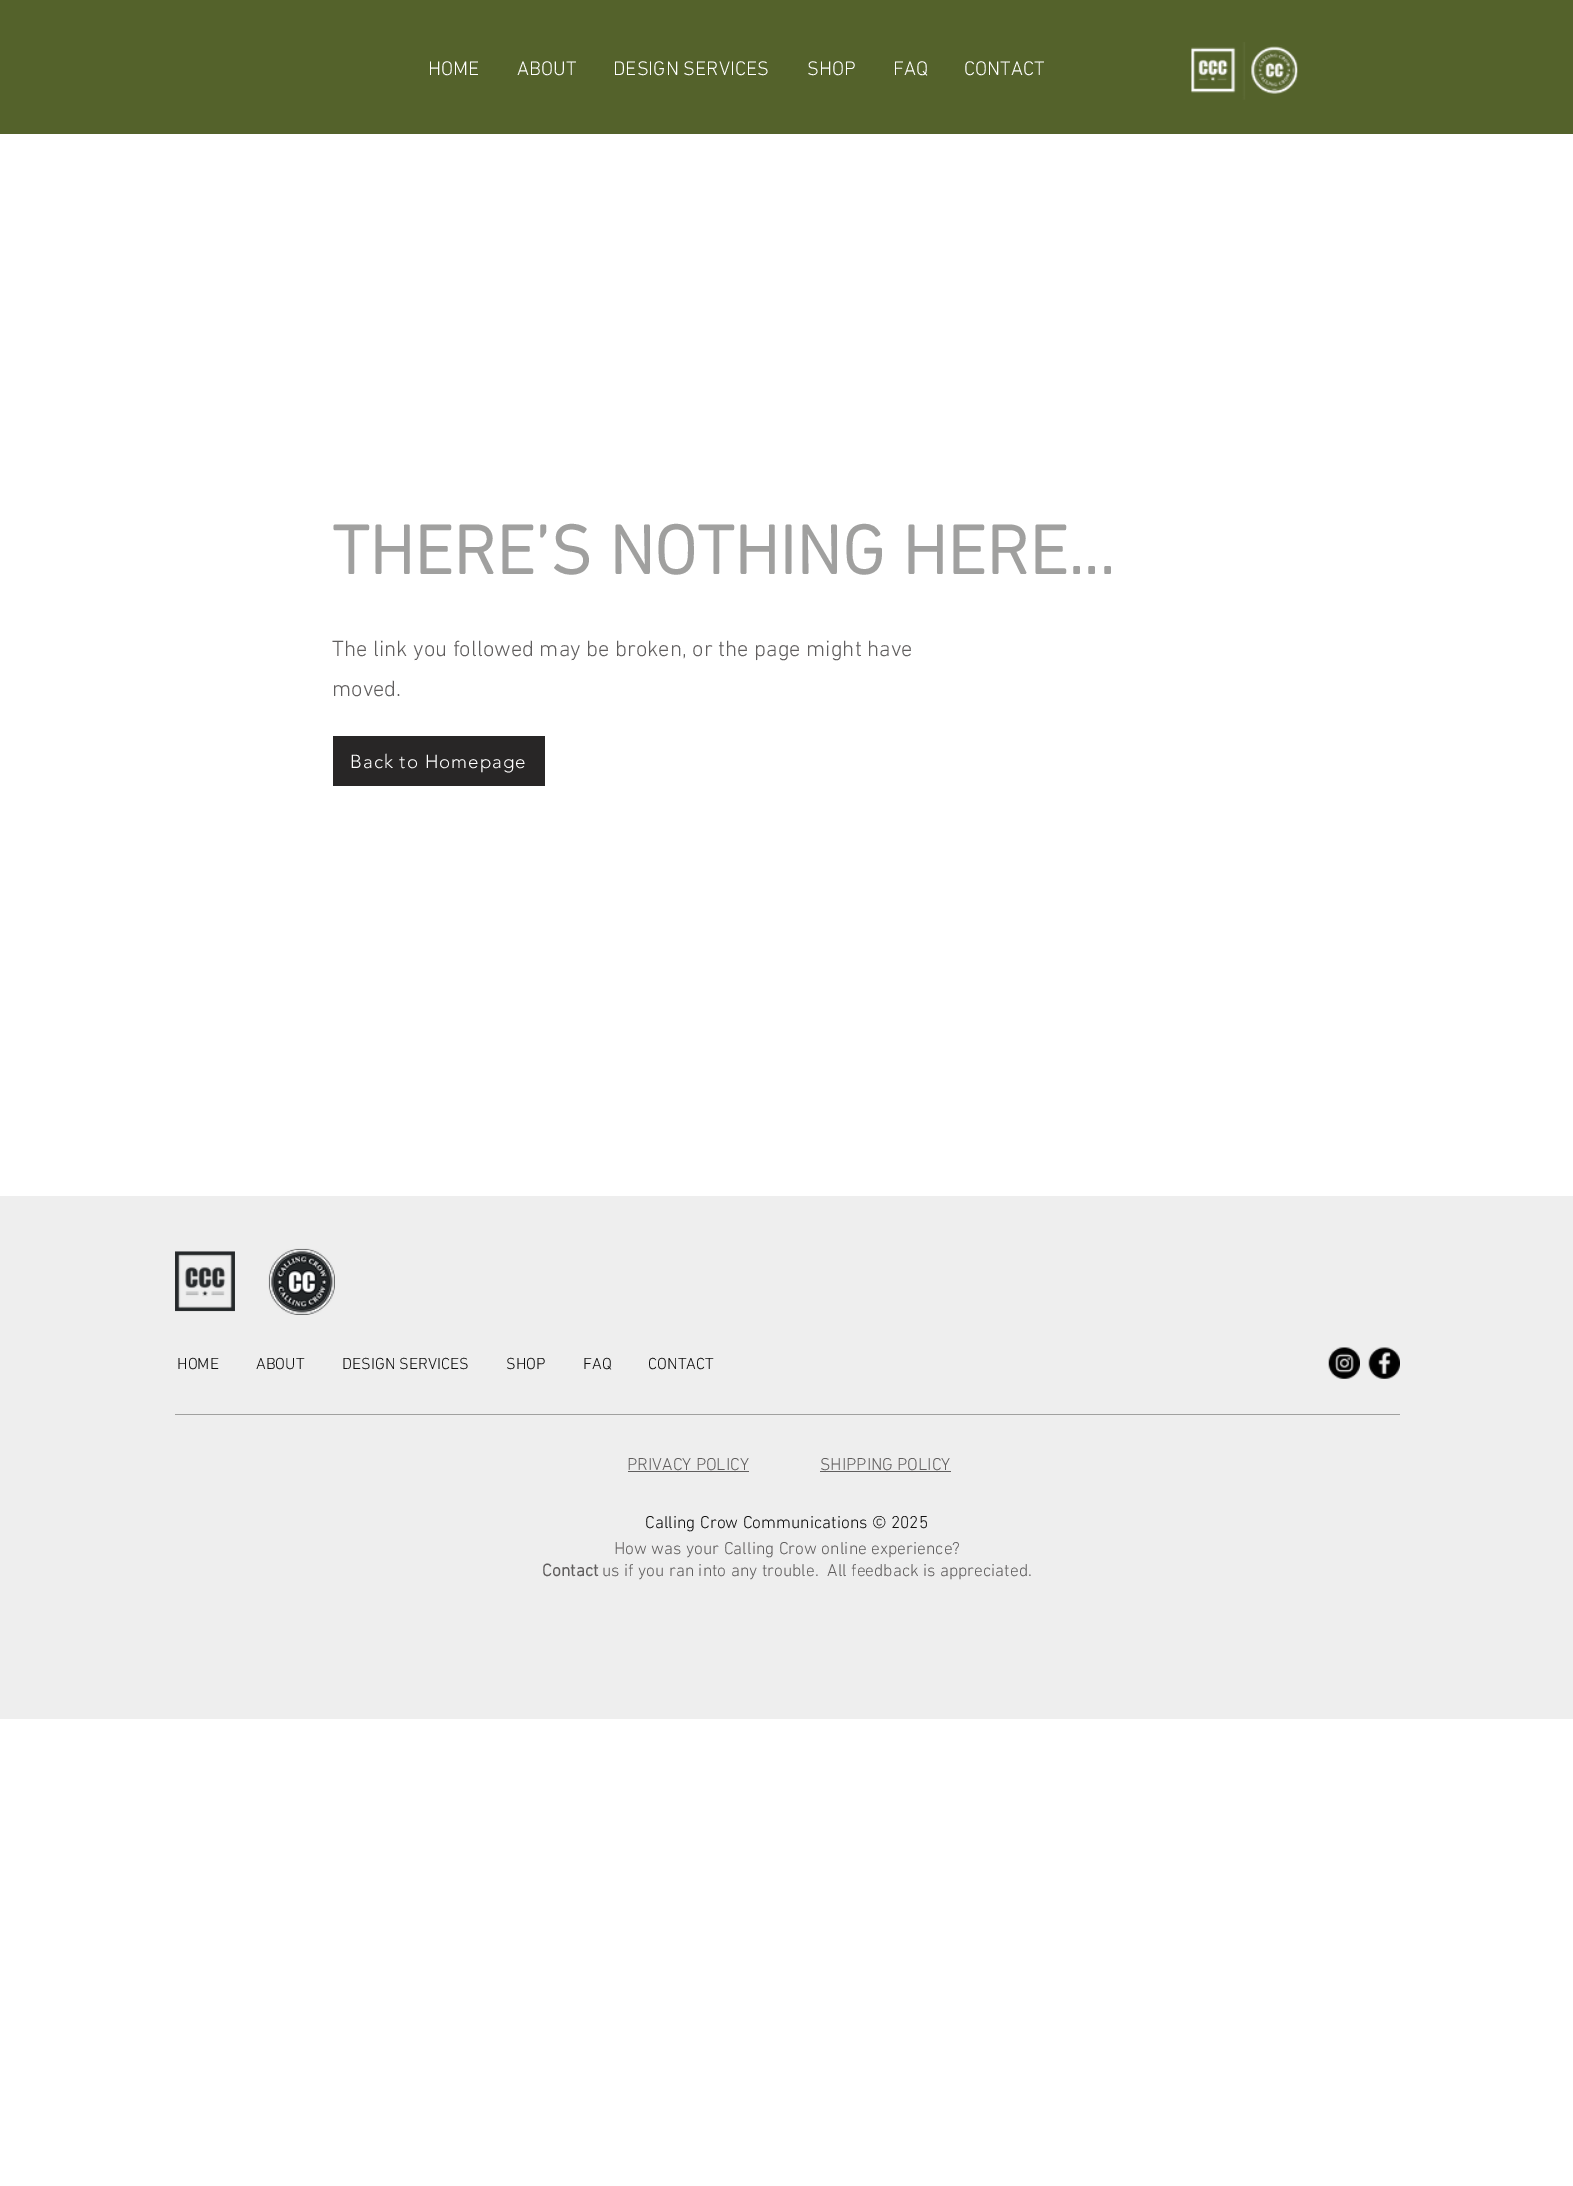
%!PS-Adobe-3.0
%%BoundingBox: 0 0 1573 2186
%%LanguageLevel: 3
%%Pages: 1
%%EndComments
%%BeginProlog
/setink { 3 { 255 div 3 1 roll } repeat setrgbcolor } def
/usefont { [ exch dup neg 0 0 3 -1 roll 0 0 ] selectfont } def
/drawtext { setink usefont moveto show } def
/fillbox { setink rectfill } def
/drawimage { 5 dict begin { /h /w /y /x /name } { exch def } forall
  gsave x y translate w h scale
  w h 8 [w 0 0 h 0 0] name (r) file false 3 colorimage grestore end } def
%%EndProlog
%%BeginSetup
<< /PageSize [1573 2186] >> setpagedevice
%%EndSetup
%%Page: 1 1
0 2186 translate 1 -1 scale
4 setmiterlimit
0 0 1573 2186 255 255 255 fillbox
0 0 1573 134 84 98 43 fillbox
(HOME) 428 75 /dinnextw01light-Light 20 255 255 255 drawtext
(ABOUT) 517 75 /dinnextw01light-Light 20 255 255 255 drawtext
(DESIGN SERVICES) 613 75 /dinnextw01light-Light 20 255 255 255 drawtext
(SHOP) 807 75 /dinnextw01light-Light 20 255 255 255 drawtext
(FAQ) 893 75 /dinnextw01light-Light 20 255 255 255 drawtext
(CONTACT) 964 75 /dinnextw01light-Light 20 255 255 255 drawtext
(assets/img1.rgb) 1191 42 107 58 drawimage
(THERE’S NOTHING HERE...) 332 574 /dinnextw01light-Bold 70 160 160 159 drawtext
(The link you followed may be broken, or the page might have) 332 656 /dinnextw01light-Light 22.5 96 94 94 drawtext
(moved.) 332 696 /dinnextw01light-Light 22.5 96 94 94 drawtext
333 736 212 50 40 38 38 fillbox
/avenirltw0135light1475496-Light 18.75 usefont
255 255 255 setink
350 768 moveto 1 0 (Back to Homepage) ashow
0 1196 1573 523 238 238 238 fillbox
(assets/img2.rgb) 175 1251 60 61 drawimage
(assets/img3.rgb) 268 1248 67 67 drawimage
(HOME) 177 1369 /dinnextw01light-Light 16.25 15 15 15 drawtext
(ABOUT) 256 1369 /dinnextw01light-Light 16.25 15 15 15 drawtext
(DESIGN SERVICES) 342 1369 /dinnextw01light-Light 16.25 15 15 15 drawtext
(SHOP) 506 1369 /dinnextw01light-Light 16.25 15 15 15 drawtext
(FAQ) 583 1369 /dinnextw01light-Light 16.25 15 15 15 drawtext
(CONTACT) 648 1369 /dinnextw01light-Light 16.25 15 15 15 drawtext
(assets/img4.rgb) 1328 1347 32 32 drawimage
(assets/img5.rgb) 1368 1347 32 32 drawimage
175 1414 1225 1 160 160 159 fillbox
(PRIVACY POLICY) 627 1470 /dinnextw01light-Light 17.5 96 94 94 drawtext
628 1471 121 1 96 94 94 fillbox
(SHIPPING POLICY) 820 1470 /dinnextw01light-Light 17.5 96 94 94 drawtext
820 1471 131 1 96 94 94 fillbox
(Calling Crow Communications © 2025) 645 1528 /dinnextw01light-Light 17.5 15 15 15 drawtext
(How was your Calling Crow online experience?) 614 1554 /dinnextw01light-Light 17.5 96 94 94 drawtext
(Contact) 542 1576 /dinnextw01light-Bold 17.5 96 94 94 drawtext
(us if you ran into any trouble.  All feedback is appreciated.) 602 1576 /dinnextw01light-Light 17.5 96 94 94 drawtext
showpage
%%EOF
